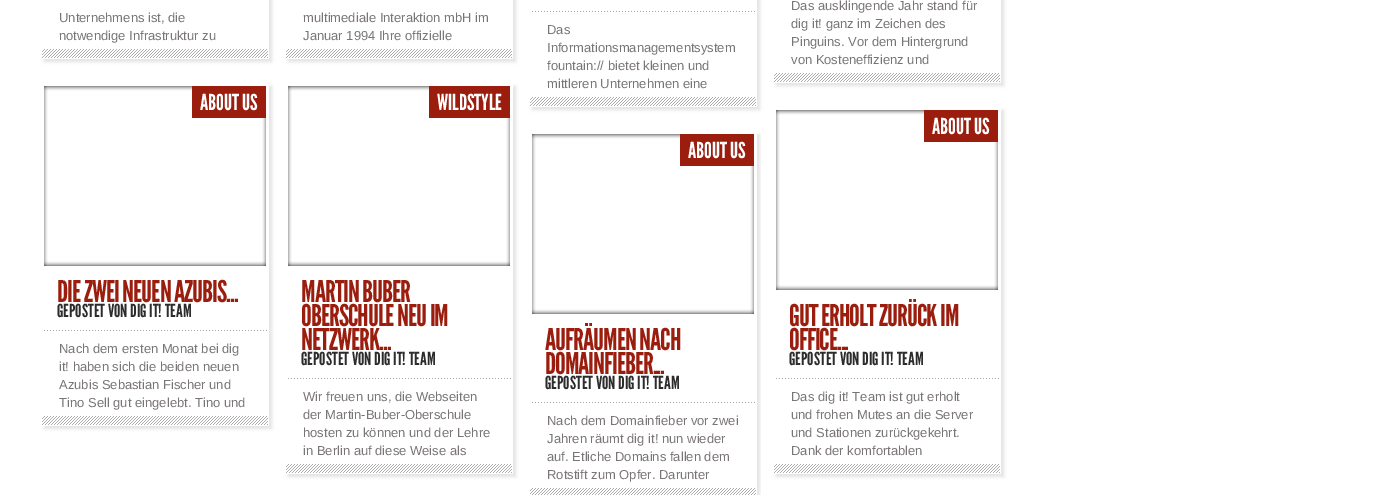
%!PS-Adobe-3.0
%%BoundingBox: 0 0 1381 495
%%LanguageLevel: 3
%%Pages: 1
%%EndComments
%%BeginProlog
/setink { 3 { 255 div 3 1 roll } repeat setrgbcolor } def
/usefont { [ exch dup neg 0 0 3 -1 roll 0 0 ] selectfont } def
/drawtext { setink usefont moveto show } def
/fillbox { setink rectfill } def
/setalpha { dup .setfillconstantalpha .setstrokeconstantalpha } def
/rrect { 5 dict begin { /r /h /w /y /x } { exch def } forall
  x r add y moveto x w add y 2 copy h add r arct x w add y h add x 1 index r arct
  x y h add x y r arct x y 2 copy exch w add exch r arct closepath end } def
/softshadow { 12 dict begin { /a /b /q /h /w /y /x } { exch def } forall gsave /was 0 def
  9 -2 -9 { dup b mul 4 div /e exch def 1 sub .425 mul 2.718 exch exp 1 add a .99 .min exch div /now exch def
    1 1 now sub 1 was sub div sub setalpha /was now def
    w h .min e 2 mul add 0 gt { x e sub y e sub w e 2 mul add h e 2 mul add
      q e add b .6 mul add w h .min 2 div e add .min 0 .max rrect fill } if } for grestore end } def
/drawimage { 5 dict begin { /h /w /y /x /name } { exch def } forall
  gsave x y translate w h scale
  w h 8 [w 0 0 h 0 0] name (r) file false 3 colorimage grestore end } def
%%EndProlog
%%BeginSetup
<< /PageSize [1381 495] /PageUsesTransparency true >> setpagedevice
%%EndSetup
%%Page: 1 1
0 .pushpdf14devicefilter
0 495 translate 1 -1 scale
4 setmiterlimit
0 0 1381 495 255 255 255 fillbox
gsave
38 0 moveto 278 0 lineto 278 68 lineto 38 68 lineto closepath 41 -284 moveto 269 -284 lineto 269 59 lineto 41 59 lineto closepath eoclip newpath
0 0 0 setink
44 -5 228 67 0 1.5 0.1 softshadow
grestore
(assets/img1.rgb) 42 49 226 9 drawimage
(Unternehmens ist, die) 59 22 /LiberationSans-Regular 13 122 117 117 drawtext
(notwendige Infrastruktur zu) 59 40 /LiberationSans-Regular 13 122 117 117 drawtext
gsave
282 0 moveto 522 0 lineto 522 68 lineto 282 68 lineto closepath 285 -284 moveto 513 -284 lineto 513 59 lineto 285 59 lineto closepath eoclip newpath
0 0 0 setink
288 -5 228 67 0 1.5 0.1 softshadow
grestore
(assets/img1.rgb) 286 49 226 9 drawimage
(multimediale Interaktion mbH im) 303 22 /LiberationSans-Regular 13 122 117 117 drawtext
(Januar 1994 Ihre offizielle) 303 40 /LiberationSans-Regular 13 122 117 117 drawtext
gsave
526 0 moveto 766 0 lineto 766 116 lineto 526 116 lineto closepath 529 -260 moveto 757 -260 lineto 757 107 lineto 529 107 lineto closepath eoclip newpath
0 0 0 setink
532 -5 228 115 0 1.5 0.1 softshadow
grestore
(assets/img1.rgb) 530 97 226 9 drawimage
(assets/img2.rgb) 532 11 223 1 drawimage
(Das) 547 34 /LiberationSans-Regular 13 122 117 117 drawtext
(Informationsmanagementsystem) 547 52 /LiberationSans-Regular 13 122 117 117 drawtext
(fountain:// bietet kleinen und) 547 70 /LiberationSans-Regular 13 122 117 117 drawtext
(mittleren Unternehmen eine) 547 88 /LiberationSans-Regular 13 122 117 117 drawtext
gsave
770 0 moveto 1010 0 lineto 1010 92 lineto 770 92 lineto closepath 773 -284 moveto 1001 -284 lineto 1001 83 lineto 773 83 lineto closepath eoclip newpath
0 0 0 setink
776 -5 228 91 0 1.5 0.1 softshadow
grestore
(assets/img1.rgb) 774 73 226 9 drawimage
(Das ausklingende Jahr stand für) 791 10 /LiberationSans-Regular 13 122 117 117 drawtext
(dig it! ganz im Zeichen des) 791 28 /LiberationSans-Regular 13 122 117 117 drawtext
(Pinguins. Vor dem Hintergrund) 791 46 /LiberationSans-Regular 13 122 117 117 drawtext
(von Kosteneffizienz und) 791 64 /LiberationSans-Regular 13 122 117 117 drawtext
gsave
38 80 moveto 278 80 lineto 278 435 lineto 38 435 lineto closepath 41 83 moveto 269 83 lineto 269 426 lineto 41 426 lineto closepath eoclip newpath
0 0 0 setink
44 86 228 343 0 1.5 0.1 softshadow
grestore
(assets/img3.rgb) 44 86 222 180 drawimage
192 86 74 32 154 29 13 fillbox
(ABOUT US) 200 110 /LeagueGothic-Regular 22 255 255 255 drawtext
/LeagueGothic-Regular 30 usefont
154 29 13 setink
57 302 moveto -1 0 (DIE ZWEI NEUEN AZUBIS...) ashow
(GEPOSTET VON DIG IT! TEAM) 57 317 /LeagueGothic-Regular 18 44 44 44 drawtext
(assets/img1.rgb) 42 416 226 9 drawimage
(assets/img2.rgb) 44 330 223 1 drawimage
(Nach dem ersten Monat bei dig) 59 353 /LiberationSans-Regular 13 122 117 117 drawtext
(it! haben sich die beiden neuen) 59 371 /LiberationSans-Regular 13 122 117 117 drawtext
(Azubis Sebastian Fischer und) 59 389 /LiberationSans-Regular 13 122 117 117 drawtext
(Tino Sell gut eingelebt. Tino und) 59 407 /LiberationSans-Regular 13 122 117 117 drawtext
gsave
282 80 moveto 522 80 lineto 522 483 lineto 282 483 lineto closepath 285 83 moveto 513 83 lineto 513 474 lineto 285 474 lineto closepath eoclip newpath
0 0 0 setink
288 86 228 391 0 1.5 0.1 softshadow
grestore
(assets/img3.rgb) 288 86 222 180 drawimage
429 86 81 32 154 29 13 fillbox
(WILDSTYLE) 437 110 /LeagueGothic-Regular 22 255 255 255 drawtext
/LeagueGothic-Regular 30 usefont
154 29 13 setink
301 302 moveto -1 0 (MARTIN BUBER) ashow
301 326 moveto -1 0 (OBERSCHULE NEU IM) ashow
301 350 moveto -1 0 (NETZWERK...) ashow
(GEPOSTET VON DIG IT! TEAM) 301 365 /LeagueGothic-Regular 18 44 44 44 drawtext
(assets/img1.rgb) 286 464 226 9 drawimage
(assets/img2.rgb) 288 378 223 1 drawimage
(Wir freuen uns, die Webseiten) 303 401 /LiberationSans-Regular 13 122 117 117 drawtext
(der Martin-Buber-Oberschule) 303 419 /LiberationSans-Regular 13 122 117 117 drawtext
(hosten zu können und der Lehre) 303 437 /LiberationSans-Regular 13 122 117 117 drawtext
(in Berlin auf diese Weise als) 303 455 /LiberationSans-Regular 13 122 117 117 drawtext
gsave
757 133 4 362 rectclip
0 0 0 setink
532 134 228 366 0 1.5 0.1 softshadow
grestore
(assets/img3.rgb) 532 134 222 180 drawimage
680 134 74 32 154 29 13 fillbox
(ABOUT US) 688 158 /LeagueGothic-Regular 22 255 255 255 drawtext
/LeagueGothic-Regular 30 usefont
154 29 13 setink
545 350 moveto -1 0 (AUFRÄUMEN NACH) ashow
545 374 moveto -1 0 (DOMAINFIEBER...) ashow
(GEPOSTET VON DIG IT! TEAM) 545 389 /LeagueGothic-Regular 18 44 44 44 drawtext
(assets/img4.rgb) 530 488 226 7 drawimage
(assets/img2.rgb) 532 402 223 1 drawimage
(Nach dem Domainfieber vor zwei) 547 425 /LiberationSans-Regular 13 122 117 117 drawtext
(Jahren räumt dig it! nun wieder) 547 443 /LiberationSans-Regular 13 122 117 117 drawtext
(auf. Etliche Domains fallen dem) 547 461 /LiberationSans-Regular 13 122 117 117 drawtext
(Rotstift zum Opfer. Darunter) 547 479 /LiberationSans-Regular 13 122 117 117 drawtext
gsave
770 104 moveto 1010 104 lineto 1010 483 lineto 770 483 lineto closepath 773 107 moveto 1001 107 lineto 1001 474 lineto 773 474 lineto closepath eoclip newpath
0 0 0 setink
776 110 228 367 0 1.5 0.1 softshadow
grestore
(assets/img3.rgb) 776 110 222 180 drawimage
924 110 74 32 154 29 13 fillbox
(ABOUT US) 932 134 /LeagueGothic-Regular 22 255 255 255 drawtext
/LeagueGothic-Regular 30 usefont
154 29 13 setink
789 326 moveto -1 0 (GUT ERHOLT ZURÜCK IM) ashow
789 350 moveto -1 0 (OFFICE...) ashow
(GEPOSTET VON DIG IT! TEAM) 789 365 /LeagueGothic-Regular 18 44 44 44 drawtext
(assets/img1.rgb) 774 464 226 9 drawimage
(assets/img2.rgb) 776 378 223 1 drawimage
(Das dig it! Team ist gut erholt) 791 401 /LiberationSans-Regular 13 122 117 117 drawtext
(und frohen Mutes an die Server) 791 419 /LiberationSans-Regular 13 122 117 117 drawtext
(und Stationen zurückgekehrt.) 791 437 /LiberationSans-Regular 13 122 117 117 drawtext
(Dank der komfortablen) 791 455 /LiberationSans-Regular 13 122 117 117 drawtext
.poppdf14devicefilter showpage
%%EOF
